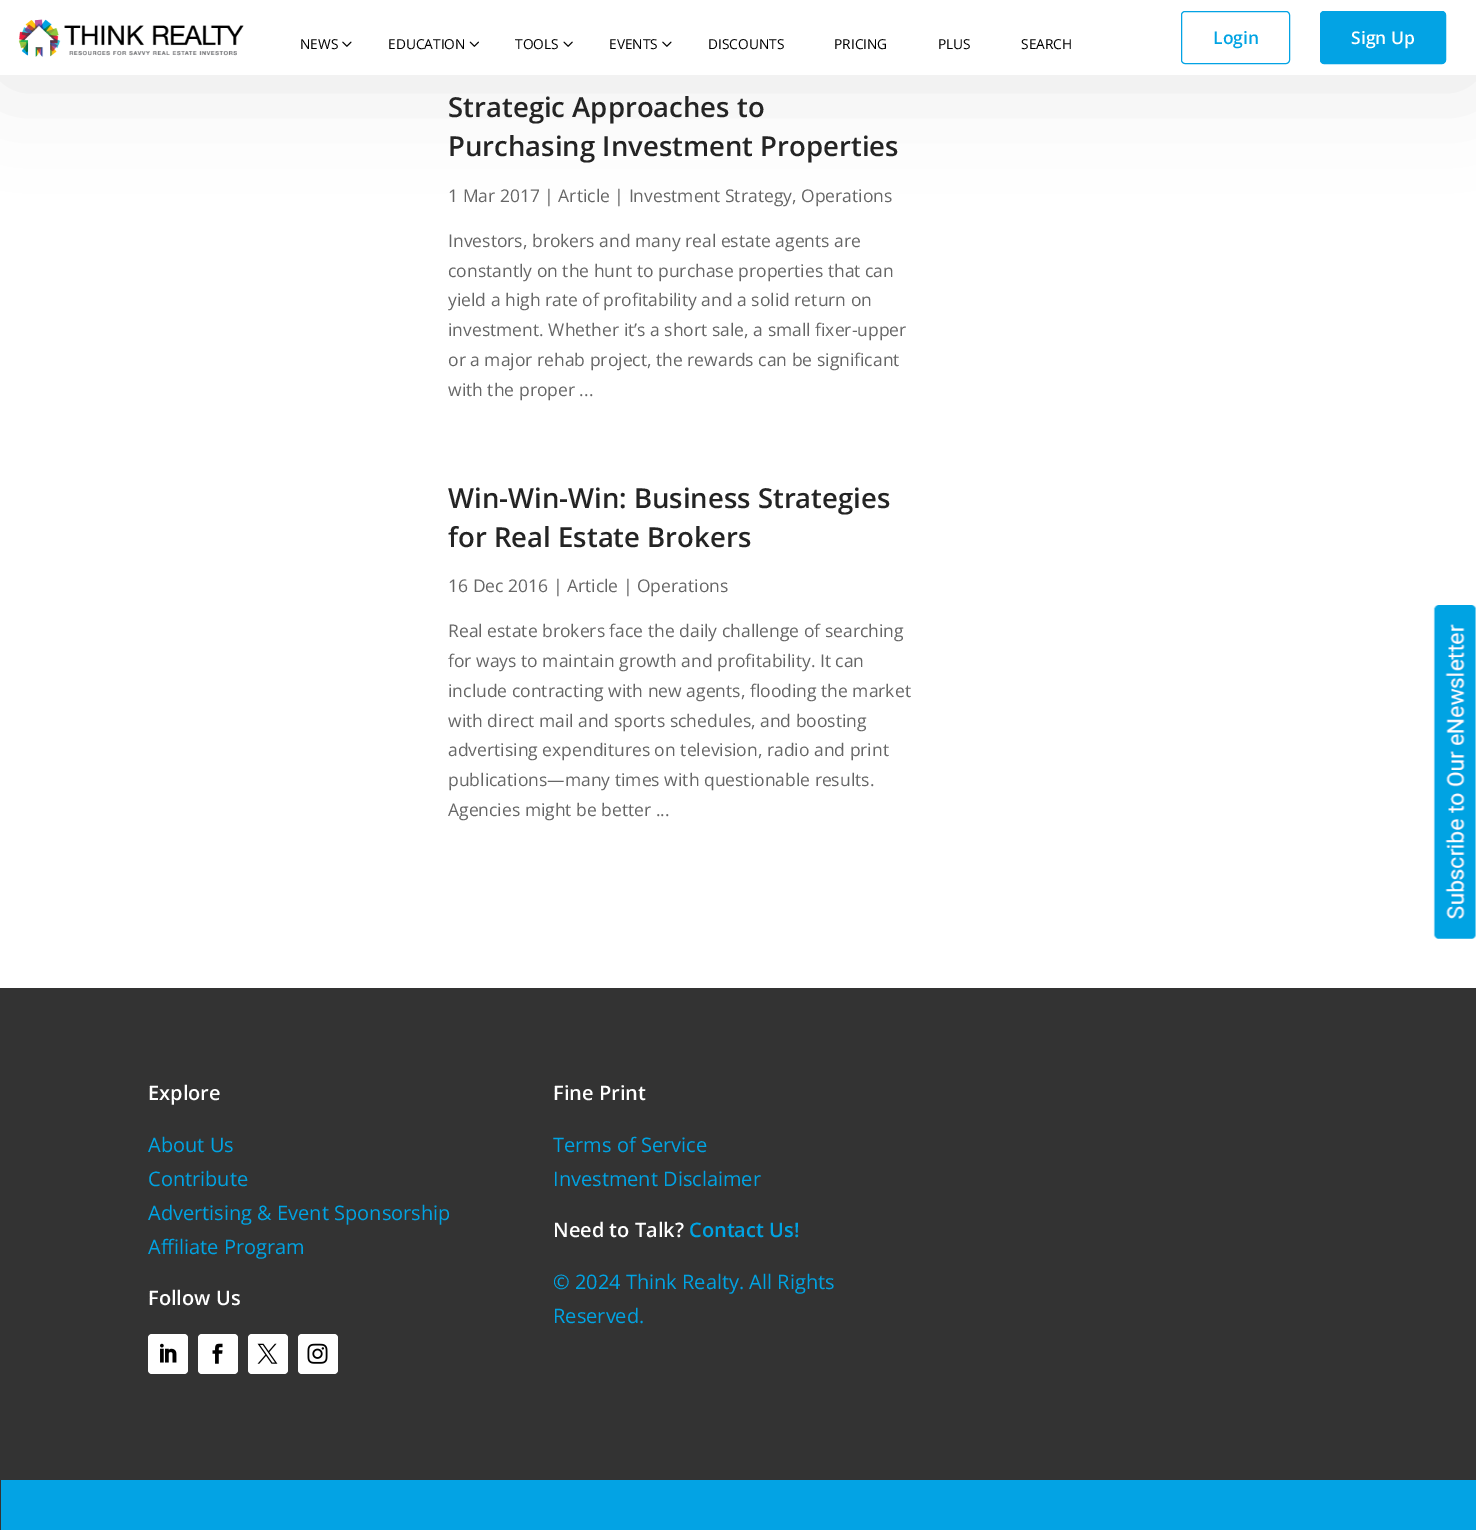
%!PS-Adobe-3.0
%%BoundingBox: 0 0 1476 1530
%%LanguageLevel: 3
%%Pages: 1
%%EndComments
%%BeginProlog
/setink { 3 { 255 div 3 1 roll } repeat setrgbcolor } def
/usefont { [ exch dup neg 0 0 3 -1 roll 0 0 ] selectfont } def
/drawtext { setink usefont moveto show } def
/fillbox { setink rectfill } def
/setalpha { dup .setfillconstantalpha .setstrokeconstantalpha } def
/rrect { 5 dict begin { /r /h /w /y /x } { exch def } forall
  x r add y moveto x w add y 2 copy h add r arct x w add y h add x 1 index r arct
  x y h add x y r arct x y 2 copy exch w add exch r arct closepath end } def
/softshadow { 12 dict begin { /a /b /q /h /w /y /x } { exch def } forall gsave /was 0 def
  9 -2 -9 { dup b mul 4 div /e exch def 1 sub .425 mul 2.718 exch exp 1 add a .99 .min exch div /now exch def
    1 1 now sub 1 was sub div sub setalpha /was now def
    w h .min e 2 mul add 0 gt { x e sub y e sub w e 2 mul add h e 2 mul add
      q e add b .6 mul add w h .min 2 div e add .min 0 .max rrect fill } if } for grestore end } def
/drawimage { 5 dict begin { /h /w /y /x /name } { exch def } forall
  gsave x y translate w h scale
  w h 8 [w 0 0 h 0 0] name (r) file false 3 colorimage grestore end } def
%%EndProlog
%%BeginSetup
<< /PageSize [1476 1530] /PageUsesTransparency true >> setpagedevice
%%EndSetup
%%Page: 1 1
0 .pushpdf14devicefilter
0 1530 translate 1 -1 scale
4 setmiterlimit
0 0 1476 1530 255 255 255 fillbox
0 0 0 setink
0 6 1476 75 0 50 0.1 softshadow
0 0 1476 75 255 255 255 fillbox
(assets/img1.rgb) 18 19 226 38 drawimage
(NEWS) 300 49 /OpenSans-Regular 13.75 0 0 0 drawtext
(assets/img2.rgb) 342 41 10 6 drawimage
(EDUCATION) 388 49 /OpenSans-Regular 13.75 0 0 0 drawtext
(assets/img3.rgb) 469 41 10 6 drawimage
(TOOLS) 515 49 /OpenSans-Regular 13.75 0 0 0 drawtext
(assets/img4.rgb) 563 41 10 6 drawimage
(EVENTS) 609 49 /OpenSans-Regular 13.75 0 0 0 drawtext
(assets/img2.rgb) 662 41 10 6 drawimage
(DISCOUNTS) 708 49 /OpenSans-Regular 13.75 0 0 0 drawtext
(PRICING) 834 49 /OpenSans-Regular 13.75 0 0 0 drawtext
(PLUS) 938 49 /OpenSans-Regular 13.75 0 0 0 drawtext
(SEARCH) 1021 49 /OpenSans-Regular 13.75 0 0 0 drawtext
3 163 228 setink
1181.5 11.5 108 52 3.5 rrect stroke
(Login) 1213 44 /OpenSans-SemiBold 17.5 0 163 227 drawtext
3 163 228 setink
1320.5 11.5 125 52 3.5 rrect gsave fill grestore
stroke
(Sign Up) 1351 44 /OpenSans-SemiBold 17.5 255 255 255 drawtext
(Strategic Approaches to) 448 117 /OpenSans-SemiBold 27.5 36 36 36 drawtext
(Purchasing Investment Properties) 448 156 /OpenSans-SemiBold 27.5 36 36 36 drawtext
(1 Mar 2017 | Article | Investment Strategy, Operations) 448 202 /OpenSans-Regular 17.5 102 102 102 drawtext
(Investors, brokers and many real estate agents are) 448 247 /OpenSans-Regular 17.5 102 102 102 drawtext
(constantly on the hunt to purchase properties that can) 448 277 /OpenSans-Regular 17.5 102 102 102 drawtext
(yield a high rate of profitability and a solid return on) 448 306 /OpenSans-Regular 17.5 102 102 102 drawtext
(investment. Whether it’s a short sale, a small fixer-upper) 448 336 /OpenSans-Regular 17.5 102 102 102 drawtext
(or a major rehab project, the rewards can be significant) 448 366 /OpenSans-Regular 17.5 102 102 102 drawtext
(with the proper ...) 448 396 /OpenSans-Regular 17.5 102 102 102 drawtext
(Win-Win-Win: Business Strategies) 448 508 /OpenSans-SemiBold 27.5 36 36 36 drawtext
(for Real Estate Brokers) 448 547 /OpenSans-SemiBold 27.5 36 36 36 drawtext
(16 Dec 2016 | Article | Operations) 448 592 /OpenSans-Regular 17.5 102 102 102 drawtext
(Real estate brokers face the daily challenge of searching) 448 637 /OpenSans-Regular 17.5 102 102 102 drawtext
(for ways to maintain growth and profitability. It can) 448 667 /OpenSans-Regular 17.5 102 102 102 drawtext
(include contracting with new agents, flooding the market) 448 697 /OpenSans-Regular 17.5 102 102 102 drawtext
(with direct mail and sports schedules, and boosting) 448 727 /OpenSans-Regular 17.5 102 102 102 drawtext
(advertising expenditures on television, radio and print) 448 756 /OpenSans-Regular 17.5 102 102 102 drawtext
(publications—many times with questionable results.) 448 786 /OpenSans-Regular 17.5 102 102 102 drawtext
(Agencies might be better ...) 448 816 /OpenSans-Regular 17.5 102 102 102 drawtext
(assets/img5.rgb) 1433 605 43 334 drawimage
0 988 1476 542 51 51 51 fillbox
1 1480 1475 50 3 163 228 fillbox
(Explore) 148 1100 /OpenSans-SemiBold 20 255 255 255 drawtext
(About Us) 148 1152 /OpenSans-Regular 20 0 163 227 drawtext
(Contribute) 148 1186 /OpenSans-Regular 20 0 163 227 drawtext
(Advertising & Event Sponsorship) 148 1220 /OpenSans-Regular 20 0 163 227 drawtext
(Affiliate Program) 148 1254 /OpenSans-Regular 20 0 163 227 drawtext
(Follow Us) 148 1305 /OpenSans-SemiBold 20 255 255 255 drawtext
148 1334 40 40 4 rrect fill
(assets/img6.rgb) 160 1343 17 20 drawimage
198 1334 40 40 4 rrect fill
(assets/img7.rgb) 212 1343 11 21 drawimage
248 1334 40 40 4 rrect fill
(assets/img8.rgb) 257 1343 21 21 drawimage
298 1334 40 40 4 rrect fill
(assets/img9.rgb) 307 1343 21 21 drawimage
(Fine Print) 553 1100 /OpenSans-SemiBold 20 255 255 255 drawtext
(Terms of Service) 553 1152 /OpenSans-Regular 20 0 163 227 drawtext
(Investment Disclaimer) 553 1186 /OpenSans-Regular 20 0 163 227 drawtext
(Need to Talk?) 553 1237 /OpenSans-SemiBold 20 255 255 255 drawtext
(Contact Us!) 689 1237 /OpenSans-SemiBold 20 0 163 227 drawtext
(© 2024 Think Realty. All Rights) 553 1289 /OpenSans-Regular 20 0 163 227 drawtext
(Reserved.) 553 1323 /OpenSans-Regular 20 0 163 227 drawtext
.poppdf14devicefilter showpage
%%EOF
